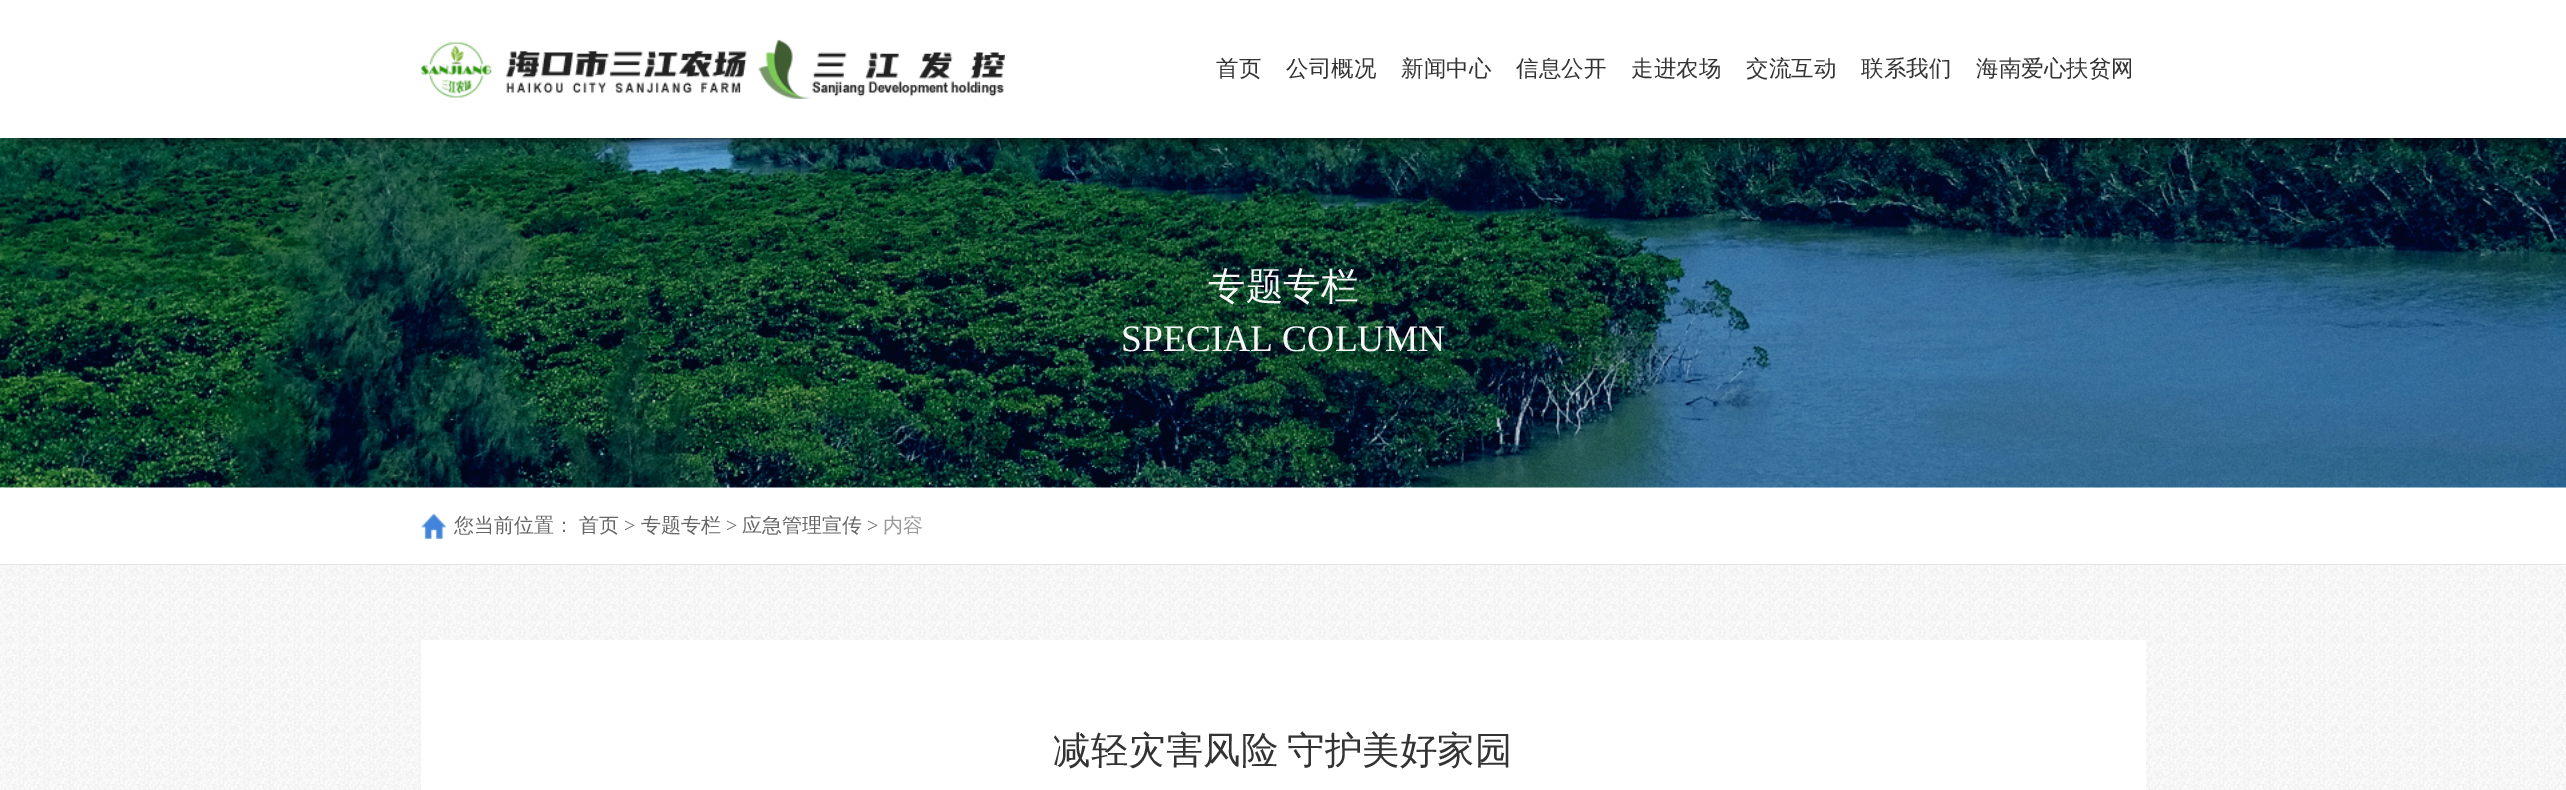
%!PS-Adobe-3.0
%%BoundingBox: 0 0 2566 790
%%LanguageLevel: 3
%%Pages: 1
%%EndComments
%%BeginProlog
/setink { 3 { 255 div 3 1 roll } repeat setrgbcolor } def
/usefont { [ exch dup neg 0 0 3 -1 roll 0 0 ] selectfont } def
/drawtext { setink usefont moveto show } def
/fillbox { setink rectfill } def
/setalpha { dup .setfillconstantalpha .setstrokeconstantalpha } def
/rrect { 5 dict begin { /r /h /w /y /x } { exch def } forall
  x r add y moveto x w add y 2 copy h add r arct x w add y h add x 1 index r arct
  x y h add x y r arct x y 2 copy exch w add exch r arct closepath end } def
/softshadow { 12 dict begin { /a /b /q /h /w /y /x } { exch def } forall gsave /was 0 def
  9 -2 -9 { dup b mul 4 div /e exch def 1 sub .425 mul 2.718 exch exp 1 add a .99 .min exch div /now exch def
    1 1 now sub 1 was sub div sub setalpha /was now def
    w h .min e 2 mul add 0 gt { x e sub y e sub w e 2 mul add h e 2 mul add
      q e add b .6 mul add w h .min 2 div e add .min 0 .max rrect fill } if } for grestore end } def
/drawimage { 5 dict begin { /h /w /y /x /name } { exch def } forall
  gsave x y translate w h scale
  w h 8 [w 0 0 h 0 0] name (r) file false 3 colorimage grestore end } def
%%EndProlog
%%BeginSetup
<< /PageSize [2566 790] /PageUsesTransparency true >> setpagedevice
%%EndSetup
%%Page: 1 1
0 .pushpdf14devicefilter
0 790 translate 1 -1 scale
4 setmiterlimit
0 0 2566 790 255 255 255 fillbox
(assets/img3.rgb) 0 487 2566 303 drawimage
(assets/img2.rgb) 0 138 2566 350 drawimage
0 0 0 setink
19 38 2529 100 0 6 1 softshadow
5 24 2557 114 255 255 255 fillbox
(assets/img1.rgb) 421 39 584 60 drawimage
(首页) 1216 76 /WenQuanYiZenHei-Medium 22.5 51 51 51 drawtext
(公司概况) 1286 76 /WenQuanYiZenHei-Medium 22.5 51 51 51 drawtext
(新闻中心) 1401 76 /WenQuanYiZenHei-Medium 22.5 51 51 51 drawtext
(信息公开) 1516 76 /WenQuanYiZenHei-Medium 22.5 51 51 51 drawtext
(走进农场) 1631 76 /WenQuanYiZenHei-Medium 22.5 51 51 51 drawtext
(交流互动) 1746 76 /WenQuanYiZenHei-Medium 22.5 51 51 51 drawtext
(联系我们) 1861 76 /WenQuanYiZenHei-Medium 22.5 51 51 51 drawtext
(海南爱心扶贫网) 1976 76 /WenQuanYiZenHei-Medium 22.5 51 51 51 drawtext
(专题专栏) 1208 299 /WenQuanYiZenHei-Medium 37.5 246 246 246 drawtext
(SPECIAL COLUMN) 1121 351 /LiberationSerif-Regular 37.5 246 246 246 drawtext
0 488 2566 76 255 255 255 fillbox
0 564 2566 1 227 227 227 fillbox
(assets/img4.rgb) 421 513 26 26 drawimage
(您当前位置：) 454 532 /WenQuanYiZenHei-Medium 20 102 102 102 drawtext
(首页) 579 532 /WenQuanYiZenHei-Medium 20 102 102 102 drawtext
(>) 624 532 /LiberationSerif-Regular 20 102 102 102 drawtext
(专题专栏) 641 532 /WenQuanYiZenHei-Medium 20 102 102 102 drawtext
(>) 726 532 /LiberationSerif-Regular 20 102 102 102 drawtext
(应急管理宣传) 742 532 /WenQuanYiZenHei-Medium 20 102 102 102 drawtext
(>) 867 532 /LiberationSerif-Regular 20 102 102 102 drawtext
(内容) 883 532 /WenQuanYiZenHei-Medium 20 153 153 153 drawtext
421 640 1725 150 255 255 255 fillbox
/WenQuanYiZenHei-Medium 37.5 usefont
51 51 51 setink
1053 763 moveto -2 0 32 (减轻灾害风险 守护美好家园) widthshow
.poppdf14devicefilter showpage
%%EOF
